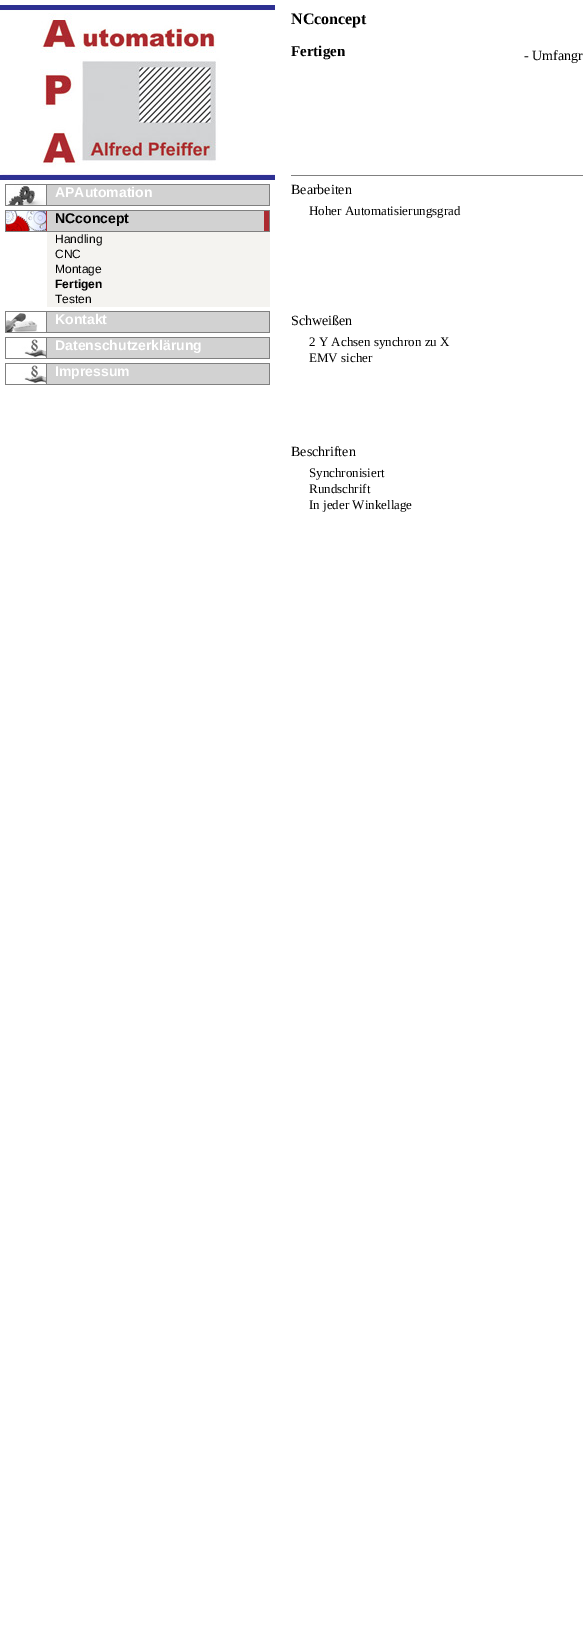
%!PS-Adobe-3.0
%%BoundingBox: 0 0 583 1635
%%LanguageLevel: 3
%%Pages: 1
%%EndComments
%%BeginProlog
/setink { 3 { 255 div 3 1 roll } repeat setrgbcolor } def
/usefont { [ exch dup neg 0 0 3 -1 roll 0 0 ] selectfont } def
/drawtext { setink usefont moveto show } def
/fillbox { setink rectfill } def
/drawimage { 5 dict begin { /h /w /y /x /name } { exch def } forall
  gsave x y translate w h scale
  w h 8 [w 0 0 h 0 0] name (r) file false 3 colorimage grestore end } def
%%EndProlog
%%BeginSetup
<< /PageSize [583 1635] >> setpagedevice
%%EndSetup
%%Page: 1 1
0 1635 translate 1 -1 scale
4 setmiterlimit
0 0 583 1635 255 255 255 fillbox
(assets/img1.rgb) 0 5 275 175 drawimage
(assets/img2.rgb) 5 184 265 22 drawimage
(APAutomation) 55 197 /LiberationSans-Bold 14 255 255 255 drawtext
(assets/img3.rgb) 5 210 265 22 drawimage
(NCconcept) 55 223 /LiberationSans-Bold 14 0 0 0 drawtext
47 232 223 75 244 243 240 fillbox
(Handling) 55 243 /LiberationSans-Regular 12 0 0 0 drawtext
(CNC) 55 258 /LiberationSans-Regular 12 0 0 0 drawtext
(Montage) 55 273 /LiberationSans-Regular 12 0 0 0 drawtext
(Fertigen) 55 288 /LiberationSans-Bold 12 0 0 0 drawtext
(Testen) 55 303 /LiberationSans-Regular 12 0 0 0 drawtext
(assets/img4.rgb) 5 311 265 22 drawimage
(Kontakt) 55 324 /LiberationSans-Bold 14 255 255 255 drawtext
(assets/img5.rgb) 5 337 265 22 drawimage
(Datenschutzerklärung) 55 350 /LiberationSans-Bold 14 255 255 255 drawtext
(assets/img5.rgb) 5 363 265 22 drawimage
(Impressum) 55 376 /LiberationSans-Bold 14 255 255 255 drawtext
(NCconcept) 291 24 /LiberationSerif-Bold 16 0 0 0 drawtext
(Fertigen) 291 56 /LiberationSerif-Bold 15 0 0 0 drawtext
(- Umfangr) 524 60 /LiberationSerif-Regular 14 0 0 0 drawtext
291 175 292 1 128 128 128 fillbox
(Bearbeiten) 291 194 /LiberationSerif-Regular 14 0 0 0 drawtext
(Hoher Automatisierungsgrad) 309 215 /LiberationSerif-Regular 13 0 0 0 drawtext
(Schweißen) 291 325 /LiberationSerif-Regular 14 0 0 0 drawtext
(2 Y Achsen synchron zu X) 309 346 /LiberationSerif-Regular 13 0 0 0 drawtext
(EMV sicher) 309 362 /LiberationSerif-Regular 13 0 0 0 drawtext
(Beschriften) 291 456 /LiberationSerif-Regular 14 0 0 0 drawtext
(Synchronisiert) 309 477 /LiberationSerif-Regular 13 0 0 0 drawtext
(Rundschrift) 309 493 /LiberationSerif-Regular 13 0 0 0 drawtext
(In jeder Winkellage) 309 509 /LiberationSerif-Regular 13 0 0 0 drawtext
showpage
%%EOF
